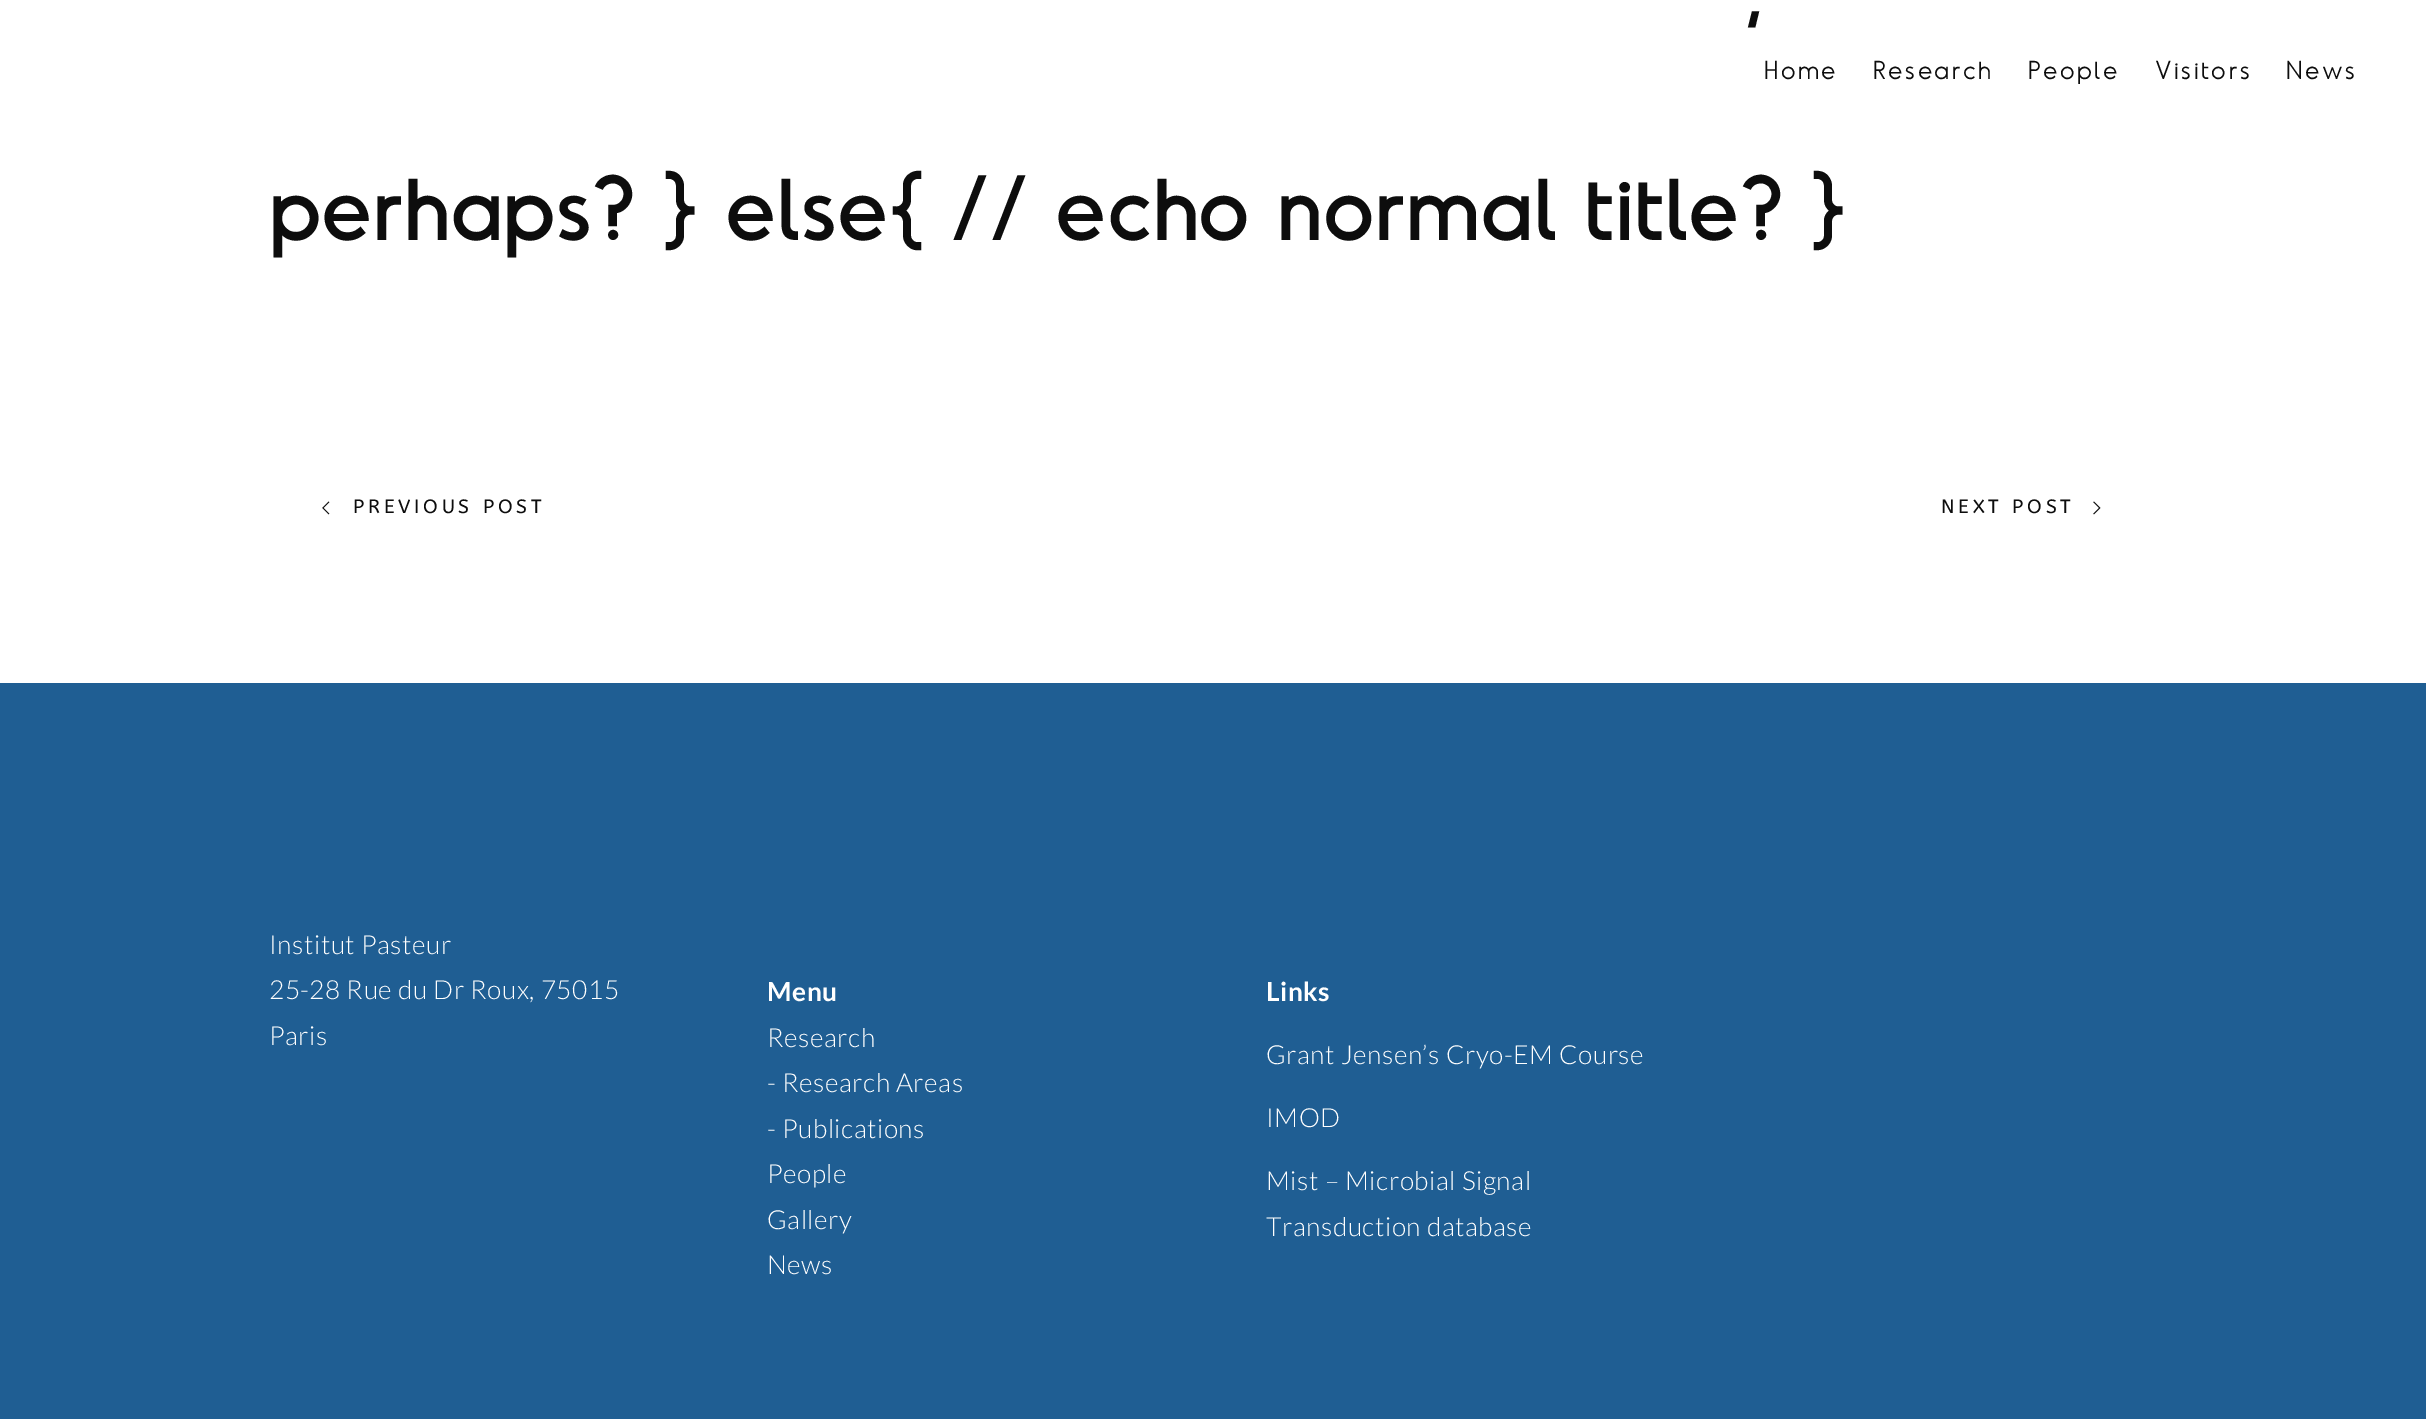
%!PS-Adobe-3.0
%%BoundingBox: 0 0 2426 1419
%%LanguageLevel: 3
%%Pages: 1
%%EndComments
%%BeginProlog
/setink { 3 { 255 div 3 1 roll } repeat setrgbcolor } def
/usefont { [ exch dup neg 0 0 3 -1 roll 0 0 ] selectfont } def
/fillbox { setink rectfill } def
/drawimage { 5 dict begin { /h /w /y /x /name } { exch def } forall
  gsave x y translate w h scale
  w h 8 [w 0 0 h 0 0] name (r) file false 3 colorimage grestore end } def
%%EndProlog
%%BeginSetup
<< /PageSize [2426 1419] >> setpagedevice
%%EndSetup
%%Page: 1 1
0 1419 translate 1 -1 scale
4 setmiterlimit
0 0 2426 1419 255 255 255 fillbox
/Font-Regular 87.5 usefont
13 13 13 setink
1745 21 moveto 0.55 0 (,) ashow
269 240 moveto 0.55 0 (perhaps? } else{ // echo normal title? }) ashow
(assets/img1.rgb) 322 501 8 14 drawimage
/ABeeZee-Regular 19.25 usefont
353 513 moveto 3.8 0 (PREVIOUS POST) ashow
1941 513 moveto 3.8 0 (NEXT POST) ashow
(assets/img2.rgb) 2093 501 8 14 drawimage
/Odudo-Light 24.5 usefont
1764 79 moveto 2.5 0 (Home) ashow
1873 79 moveto 2.5 0 (Research) ashow
2028 79 moveto 2.5 0 (People) ashow
2155 79 moveto 2.5 0 (Visitors) ashow
2286 79 moveto 2.5 0 (News) ashow
0 683 2426 736 31 94 147 fillbox
/Lato-Light 26.25 usefont
255 255 255 setink
269 954 moveto 0.55 0 (Institut Pasteur) ashow
269 999 moveto 0.55 0 (25) ashow
300 999 moveto 0.55 0 (-28 Rue du Dr Roux, 75015) ashow
269 1045 moveto 0.55 0 (Paris) ashow
/Lato-Bold 26.25 usefont
767 1001 moveto 0.55 0 (Menu) ashow
/Lato-Light 26.25 usefont
767 1047 moveto 0.55 0 (Research) ashow
767 1092 moveto 0.55 0 (- Research Areas) ashow
767 1138 moveto 0.55 0 (- Publications) ashow
767 1183 moveto 0.55 0 (People) ashow
767 1229 moveto 0.55 0 (Gallery) ashow
767 1274 moveto 0.55 0 (News) ashow
/Lato-Bold 26.25 usefont
1266 1001 moveto 0.55 0 (Links) ashow
/Lato-Light 26.25 usefont
1266 1064 moveto 0.55 0 (Grant Jensen’s Cryo-EM Course) ashow
1266 1127 moveto 0.55 0 (IMOD) ashow
1266 1190 moveto 0.55 0 (Mist – Microbial Signal) ashow
1266 1236 moveto 0.55 0 (Transduction database) ashow
showpage
%%EOF
